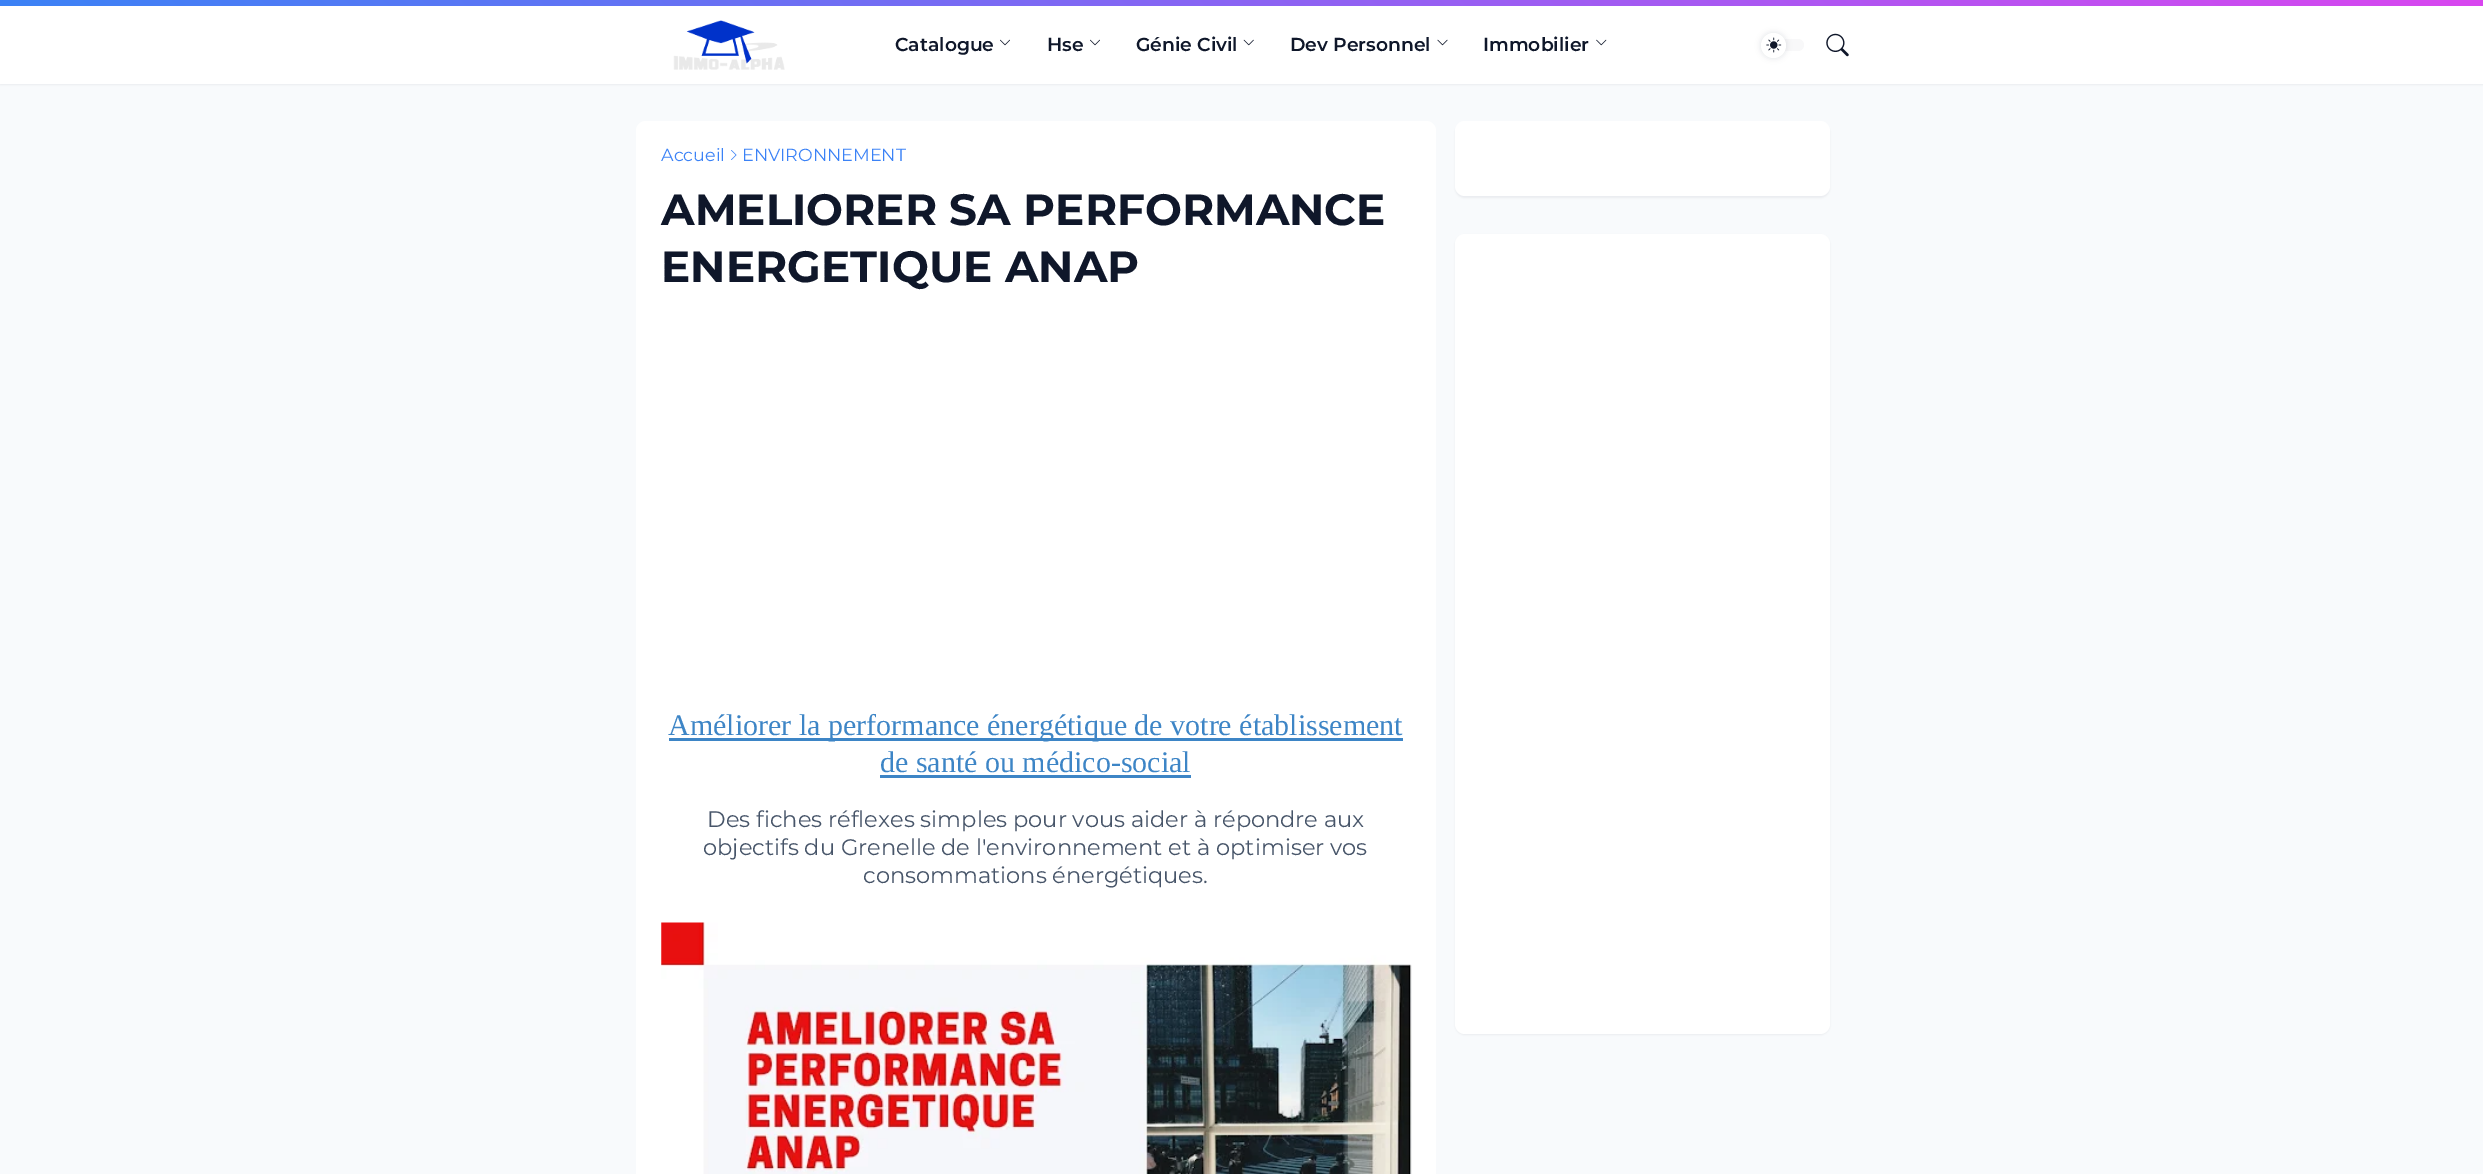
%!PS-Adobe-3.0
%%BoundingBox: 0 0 2483 1174
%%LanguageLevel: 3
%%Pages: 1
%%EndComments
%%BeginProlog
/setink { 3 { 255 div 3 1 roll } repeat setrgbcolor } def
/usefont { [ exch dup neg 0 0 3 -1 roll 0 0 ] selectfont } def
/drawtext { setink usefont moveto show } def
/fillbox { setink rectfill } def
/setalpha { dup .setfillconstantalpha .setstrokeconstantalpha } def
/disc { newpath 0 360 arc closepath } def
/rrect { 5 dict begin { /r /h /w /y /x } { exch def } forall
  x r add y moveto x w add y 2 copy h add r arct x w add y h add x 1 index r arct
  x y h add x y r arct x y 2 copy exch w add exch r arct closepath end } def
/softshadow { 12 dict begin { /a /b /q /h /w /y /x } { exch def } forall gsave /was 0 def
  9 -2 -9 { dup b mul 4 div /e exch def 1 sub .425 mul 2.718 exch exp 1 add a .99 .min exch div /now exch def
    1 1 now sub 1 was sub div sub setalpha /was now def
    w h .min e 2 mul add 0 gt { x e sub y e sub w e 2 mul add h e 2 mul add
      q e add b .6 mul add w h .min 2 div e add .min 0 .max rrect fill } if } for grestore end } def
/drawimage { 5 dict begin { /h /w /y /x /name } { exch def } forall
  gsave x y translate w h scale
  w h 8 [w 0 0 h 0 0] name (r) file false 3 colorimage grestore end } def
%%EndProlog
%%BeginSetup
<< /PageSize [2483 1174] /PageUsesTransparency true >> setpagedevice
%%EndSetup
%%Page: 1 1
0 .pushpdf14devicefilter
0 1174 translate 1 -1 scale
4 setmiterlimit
0 0 2483 1174 248 250 252 fillbox
15 23 42 setink
0 1 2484 84 0 1 0.05 softshadow
gsave 0 0 moveto 2483 0 lineto 2483 6 lineto 0 6 lineto closepath clip newpath
<< /ShadingType 2 /ColorSpace /DeviceRGB /Coords [619 626 1864 -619] /Extend [true true] /Function << /FunctionType 2 /Domain [0 1] /C0 [0.231 0.51 0.965] /C1 [0.851 0.275 0.937] /N 1 >> >> shfill grestore
0 6 2483 78 255 255 255 fillbox
(assets/img1.rgb) 673 20 112 50 drawimage
(Catalogue) 895 51 /Montserrat-SemiBold 18.75 15 23 42 drawtext
(assets/img2.rgb) 1000 39 10 7 drawimage
(Hse) 1047 51 /Montserrat-SemiBold 18.75 15 23 42 drawtext
(assets/img2.rgb) 1090 39 10 7 drawimage
(Génie Civil) 1136 51 /Montserrat-SemiBold 18.75 15 23 42 drawtext
(assets/img3.rgb) 1243 39 11 7 drawimage
(Dev Personnel) 1290 51 /Montserrat-SemiBold 18.75 15 23 42 drawtext
(assets/img4.rgb) 1437 39 11 7 drawimage
(Immobilier) 1483 51 /Montserrat-SemiBold 18.75 15 23 42 drawtext
(assets/img5.rgb) 1596 39 11 7 drawimage
248 248 249 setink
1761 39 43 12 6 rrect fill
15 23 42 setink
1761 33 25 25 12.5 3 0.12 softshadow
255 255 255 setink
1773.5 45.5 12.5 disc fill
(assets/img6.rgb) 1766 37 16 16 drawimage
(assets/img7.rgb) 1826 33 23 24 drawimage
636 121 800 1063 10 rrect fill
(Accueil) 661 161 /Montserrat-Regular 17.5 59 130 246 drawtext
(assets/img8.rgb) 731 150 6 10 drawimage
(ENVIRONNEMENT) 742 161 /Montserrat-Regular 17.5 59 130 246 drawtext
(AMELIORER SA PERFORMANCE) 661 225 /Montserrat-Bold 43.75 15 23 42 drawtext
(ENERGETIQUE ANAP) 661 282 /Montserrat-Bold 43.75 15 23 42 drawtext
669 738 734 3 61 133 198 fillbox
(Améliorer la performance énergétique de votre établissement) 668 735 /LiberationSerif-Regular 30 61 133 198 drawtext
(de santé ou médico-social) 880 772 /LiberationSerif-Regular 30 61 133 198 drawtext
880 775 311 3 61 133 198 fillbox
(Des fiches réflexes simples pour vous aider à répondre aux) 707 827 /Montserrat-Regular 22.5 71 85 105 drawtext
(objectifs du Grenelle de l'environnement et à optimiser vos) 703 855 /Montserrat-Regular 22.5 71 85 105 drawtext
(consommations énergétiques.) 863 883 /Montserrat-Regular 22.5 71 85 105 drawtext
(assets/img9.rgb) 661 922 751 252 drawimage
15 23 42 setink
1455 123 375 75 10 1 0.05 softshadow
255 255 255 setink
1455 121 375 75 10 rrect fill
15 23 42 setink
1455 235 375 800 10 1 0.05 softshadow
255 255 255 setink
1455 234 375 800 10 rrect fill
.poppdf14devicefilter showpage
%%EOF
